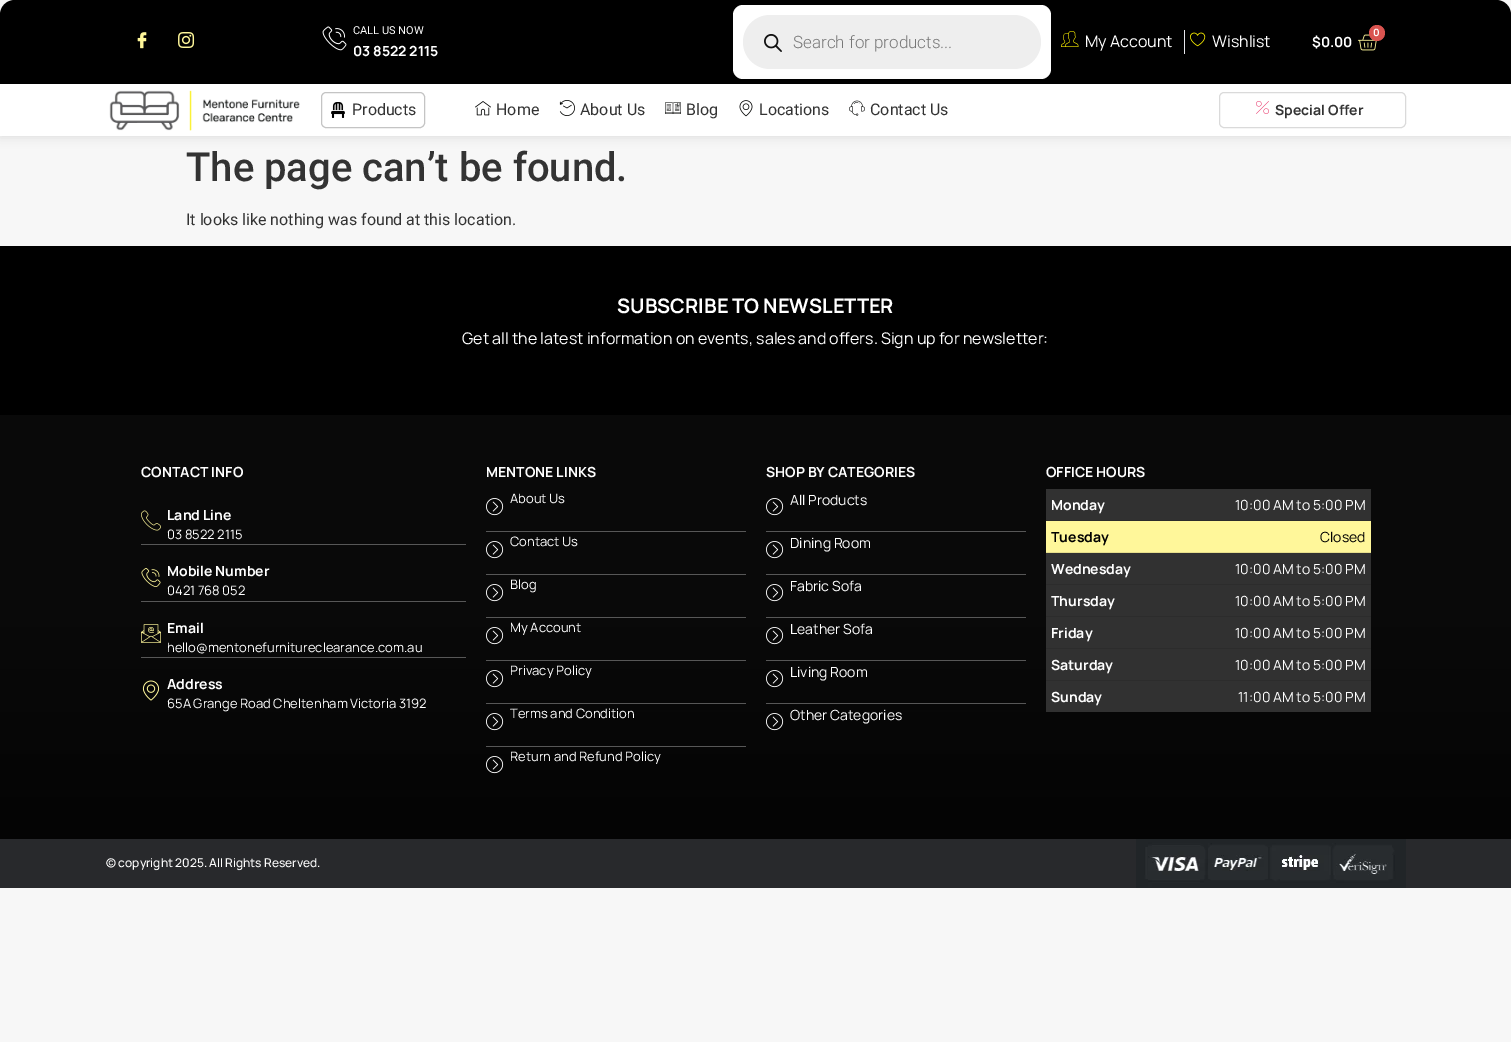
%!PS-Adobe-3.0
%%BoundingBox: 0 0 1511 1042
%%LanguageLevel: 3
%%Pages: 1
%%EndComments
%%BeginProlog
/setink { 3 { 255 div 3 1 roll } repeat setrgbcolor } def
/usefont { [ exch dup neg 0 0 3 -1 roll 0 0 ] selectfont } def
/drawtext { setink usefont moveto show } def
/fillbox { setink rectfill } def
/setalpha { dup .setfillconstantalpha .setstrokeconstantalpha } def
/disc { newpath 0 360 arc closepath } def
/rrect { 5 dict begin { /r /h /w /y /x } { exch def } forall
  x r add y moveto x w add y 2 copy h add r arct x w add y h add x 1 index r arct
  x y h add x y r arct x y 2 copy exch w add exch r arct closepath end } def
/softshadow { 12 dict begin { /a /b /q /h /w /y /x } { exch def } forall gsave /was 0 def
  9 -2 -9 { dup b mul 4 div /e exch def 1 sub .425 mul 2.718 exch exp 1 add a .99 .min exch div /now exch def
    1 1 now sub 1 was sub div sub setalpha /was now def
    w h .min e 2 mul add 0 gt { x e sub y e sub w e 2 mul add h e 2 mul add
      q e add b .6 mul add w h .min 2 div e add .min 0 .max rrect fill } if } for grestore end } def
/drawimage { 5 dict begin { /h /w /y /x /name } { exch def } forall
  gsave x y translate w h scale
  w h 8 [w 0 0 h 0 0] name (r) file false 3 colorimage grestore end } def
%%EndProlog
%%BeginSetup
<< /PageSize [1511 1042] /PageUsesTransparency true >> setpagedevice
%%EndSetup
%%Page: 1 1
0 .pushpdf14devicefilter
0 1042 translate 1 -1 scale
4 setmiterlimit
0 0 1511 1042 247 247 247 fillbox
0 0 0 setink
15 0 moveto 1496 0 lineto 1504.5 0 1511 6.5 1511 15 curveto 1511 84 lineto 0 84 lineto 0 15 lineto 0 6.5 6.5 0 15 0 curveto closepath fill
(assets/img1.rgb) 137 32 10 17 drawimage
(assets/img2.rgb) 178 32 17 16 drawimage
(assets/img3.rgb) 322 26 25 25 drawimage
(CALL US NOW) 353 34 /Roboto-Regular 11 255 255 255 drawtext
(03 8522 2115) 353 56 /Manrope-Bold 14 255 255 255 drawtext
733 5 318 74 10 rrect fill
238 238 238 setink
743 15 298 54 27 rrect fill
(assets/img4.rgb) 764 34 18 18 drawimage
(Search for products...) 793 48 /Roboto-Light 17 119 119 119 drawtext
(assets/img5.rgb) 1061 31 18 16 drawimage
(My Account) 1085 47 /Manrope-Regular 16 255 255 255 drawtext
1184 30 1 24 230 231 236 fillbox
(assets/img6.rgb) 1190 32 16 15 drawimage
(Wishlist) 1212 47 /Manrope-Regular 16 255 255 255 drawtext
(assets/img7.rgb) 1357 34 21 17 drawimage
217 83 79 setink
1377 33 8 disc fill
(0) 1373 36 /Manrope-Bold 10 255 255 255 drawtext
($0.00) 1312 47 /Manrope-Bold 14 255 255 255 drawtext
0 0 0 setink
0 86 1511 52 0 5 0.09 softshadow
0 84 1511 52 255 255 255 fillbox
(assets/img8.rgb) 109 90 191 41 drawimage
196 196 196 setink
321.5 92.5 103 35 4.5 rrect stroke
(assets/img9.rgb) 331 102 14 16 drawimage
(Products) 352 115 /Roboto-Regular 16 51 51 51 drawtext
(assets/img10.rgb) 475 101 16 15 drawimage
(Home) 496 115 /Roboto-Regular 16 51 51 51 drawtext
(assets/img11.rgb) 559 100 16 16 drawimage
(About Us) 580 115 /Roboto-Regular 16 51 51 51 drawtext
(assets/img12.rgb) 665 102 16 12 drawimage
(Blog) 686 115 /Roboto-Regular 16 51 51 51 drawtext
(assets/img13.rgb) 739 100 14 17 drawimage
(Locations) 759 115 /Roboto-Regular 16 51 51 51 drawtext
(assets/img14.rgb) 849 100 16 16 drawimage
(Contact Us) 870 115 /Roboto-Regular 16 51 51 51 drawtext
218 218 218 setink
1219.5 92.5 186 35 4.5 rrect stroke
(assets/img15.rgb) 1256 101 13 13 drawimage
(Special Offer) 1275 115 /Manrope-Bold 14 51 51 51 drawtext
(The page can’t be found.) 186 181 /Roboto-Medium 40 51 51 51 drawtext
(It looks like nothing was found at this location.) 186 225 /Roboto-Regular 16 51 51 51 drawtext
0 246 1511 169 0 0 0 fillbox
(SUBSCRIBE TO NEWSLETTER) 617 313 /Manrope-Bold 20 255 255 255 drawtext
(Get all the latest information on events, sales and offers. Sign up for newsletter:) 462 344 /Manrope-Regular 16 255 255 255 drawtext
gsave 0 415 moveto 1511 415 lineto 1511 839 lineto 0 839 lineto closepath clip newpath
<< /ShadingType 2 /ColorSpace /DeviceRGB /Coords [756 415 756 839] /Extend [true true] /Function << /FunctionType 3 /Domain [0 1] /Functions [<< /FunctionType 2 /Domain [0 1] /C0 [0.035 0.035 0.035] /C1 [0.035 0.035 0.035] /N 1 >> << /FunctionType 2 /Domain [0 1] /C0 [0.035 0.035 0.035] /C1 [0.016 0.016 0.016] /N 1 >>] /Bounds [0.46] /Encode [0 1 0 1] >> >> shfill grestore
(CONTACT INFO) 141 477 /Manrope-Bold 14 255 255 255 drawtext
(assets/img16.rgb) 141 510 20 21 drawimage
(Land Line) 167 520 /Manrope-Bold 14 255 255 255 drawtext
(03 8522 2115) 167 539 /Manrope-Regular 13 255 255 255 drawtext
141 544 325 1 87 87 87 fillbox
(assets/img17.rgb) 141 568 20 19 drawimage
(Mobile Number) 167 576 /Manrope-Bold 14 255 255 255 drawtext
(0421 768 052) 167 595 /Manrope-Regular 13 255 255 255 drawtext
141 601 325 1 87 87 87 fillbox
(assets/img18.rgb) 141 624 20 19 drawimage
(Email) 167 633 /Manrope-Bold 14 255 255 255 drawtext
(hello@mentonefurnitureclearance.com.au) 167 652 /Manrope-Regular 13 255 255 255 drawtext
141 657 325 1 87 87 87 fillbox
(assets/img19.rgb) 142 680 18 21 drawimage
(Address) 167 689 /Manrope-Bold 14 255 255 255 drawtext
(65A Grange Road Cheltenham Victoria 3192) 167 708 /Manrope-Regular 13 255 255 255 drawtext
(MENTONE LINKS) 486 477 /Manrope-Bold 14 255 255 255 drawtext
(assets/img20.rgb) 486 498 18 18 drawimage
(About Us) 510 503 /Manrope-Regular 13 255 255 255 drawtext
486 531 260 1 87 87 87 fillbox
(assets/img20.rgb) 486 541 18 18 drawimage
(Contact Us) 510 546 /Manrope-Regular 13 255 255 255 drawtext
486 574 260 1 87 87 87 fillbox
(assets/img20.rgb) 486 584 18 18 drawimage
(Blog) 510 589 /Manrope-Regular 13 255 255 255 drawtext
486 617 260 1 87 87 87 fillbox
(assets/img21.rgb) 486 627 18 18 drawimage
(My Account) 510 632 /Manrope-Regular 13 255 255 255 drawtext
486 660 260 1 87 87 87 fillbox
(assets/img22.rgb) 486 670 18 18 drawimage
(Privacy Policy) 510 675 /Manrope-Regular 13 255 255 255 drawtext
486 703 260 1 87 87 87 fillbox
(assets/img23.rgb) 486 713 18 18 drawimage
(Terms and Condition) 510 718 /Manrope-Regular 13 255 255 255 drawtext
486 746 260 1 87 87 87 fillbox
(assets/img24.rgb) 486 756 18 18 drawimage
(Return and Refund Policy) 510 761 /Manrope-Regular 13 255 255 255 drawtext
(SHOP BY CATEGORIES) 766 477 /Manrope-Bold 14 255 255 255 drawtext
(assets/img20.rgb) 766 498 18 18 drawimage
(All Products) 790 505 /Manrope-Regular 14 255 255 255 drawtext
766 531 260 1 87 87 87 fillbox
(assets/img20.rgb) 766 541 18 18 drawimage
(Dining Room) 790 548 /Manrope-Regular 14 255 255 255 drawtext
766 574 260 1 87 87 87 fillbox
(assets/img20.rgb) 766 584 18 18 drawimage
(Fabric Sofa) 790 591 /Manrope-Regular 14 255 255 255 drawtext
766 617 260 1 87 87 87 fillbox
(assets/img21.rgb) 766 627 18 18 drawimage
(Leather Sofa) 790 634 /Manrope-Regular 14 255 255 255 drawtext
766 660 260 1 87 87 87 fillbox
(assets/img22.rgb) 766 670 18 18 drawimage
(Living Room) 790 677 /Manrope-Regular 14 255 255 255 drawtext
766 703 260 1 87 87 87 fillbox
(assets/img23.rgb) 766 713 18 18 drawimage
(Other Categories) 790 720 /Manrope-Regular 14 255 255 255 drawtext
(OFFICE HOURS) 1046 477 /Manrope-Bold 14 255 255 255 drawtext
1046 489 325 31 49 49 49 fillbox
1046 520 325 1 44 44 44 fillbox
(Monday) 1051 510 /Manrope-Bold 14 255 255 255 drawtext
(10:00 AM to 5:00 PM) 1235 510 /Manrope-Regular 14 255 255 255 drawtext
1046 521 325 31 255 247 154 fillbox
1046 552 325 1 230 222 139 fillbox
(Tuesday) 1051 542 /Manrope-Bold 14 0 0 0 drawtext
(Closed) 1320 542 /Manrope-Regular 14 0 0 0 drawtext
1046 553 325 31 49 49 49 fillbox
1046 584 325 1 44 44 44 fillbox
(Wednesday) 1051 574 /Manrope-Bold 14 255 255 255 drawtext
(10:00 AM to 5:00 PM) 1235 574 /Manrope-Regular 14 255 255 255 drawtext
1046 585 325 31 49 49 49 fillbox
1046 616 325 1 44 44 44 fillbox
(Thursday) 1051 606 /Manrope-Bold 14 255 255 255 drawtext
(10:00 AM to 5:00 PM) 1235 606 /Manrope-Regular 14 255 255 255 drawtext
1046 617 325 31 49 49 49 fillbox
1046 648 325 1 44 44 44 fillbox
(Friday) 1051 638 /Manrope-Bold 14 255 255 255 drawtext
(10:00 AM to 5:00 PM) 1235 638 /Manrope-Regular 14 255 255 255 drawtext
1046 649 325 31 49 49 49 fillbox
1046 680 325 1 44 44 44 fillbox
(Saturday) 1051 670 /Manrope-Bold 14 255 255 255 drawtext
(10:00 AM to 5:00 PM) 1235 670 /Manrope-Regular 14 255 255 255 drawtext
1046 681 325 31 49 49 49 fillbox
(Sunday) 1051 702 /Manrope-Bold 14 255 255 255 drawtext
(11:00 AM to 5:00 PM) 1238 702 /Manrope-Regular 14 255 255 255 drawtext
0 839 1511 49 40 41 44 fillbox
(© copyright 2025. All Rights Reserved.) 106 867 /Manrope-Medium 12 255 255 255 drawtext
(assets/img25.rgb) 1136 839 270 49 drawimage
.poppdf14devicefilter showpage
%%EOF
